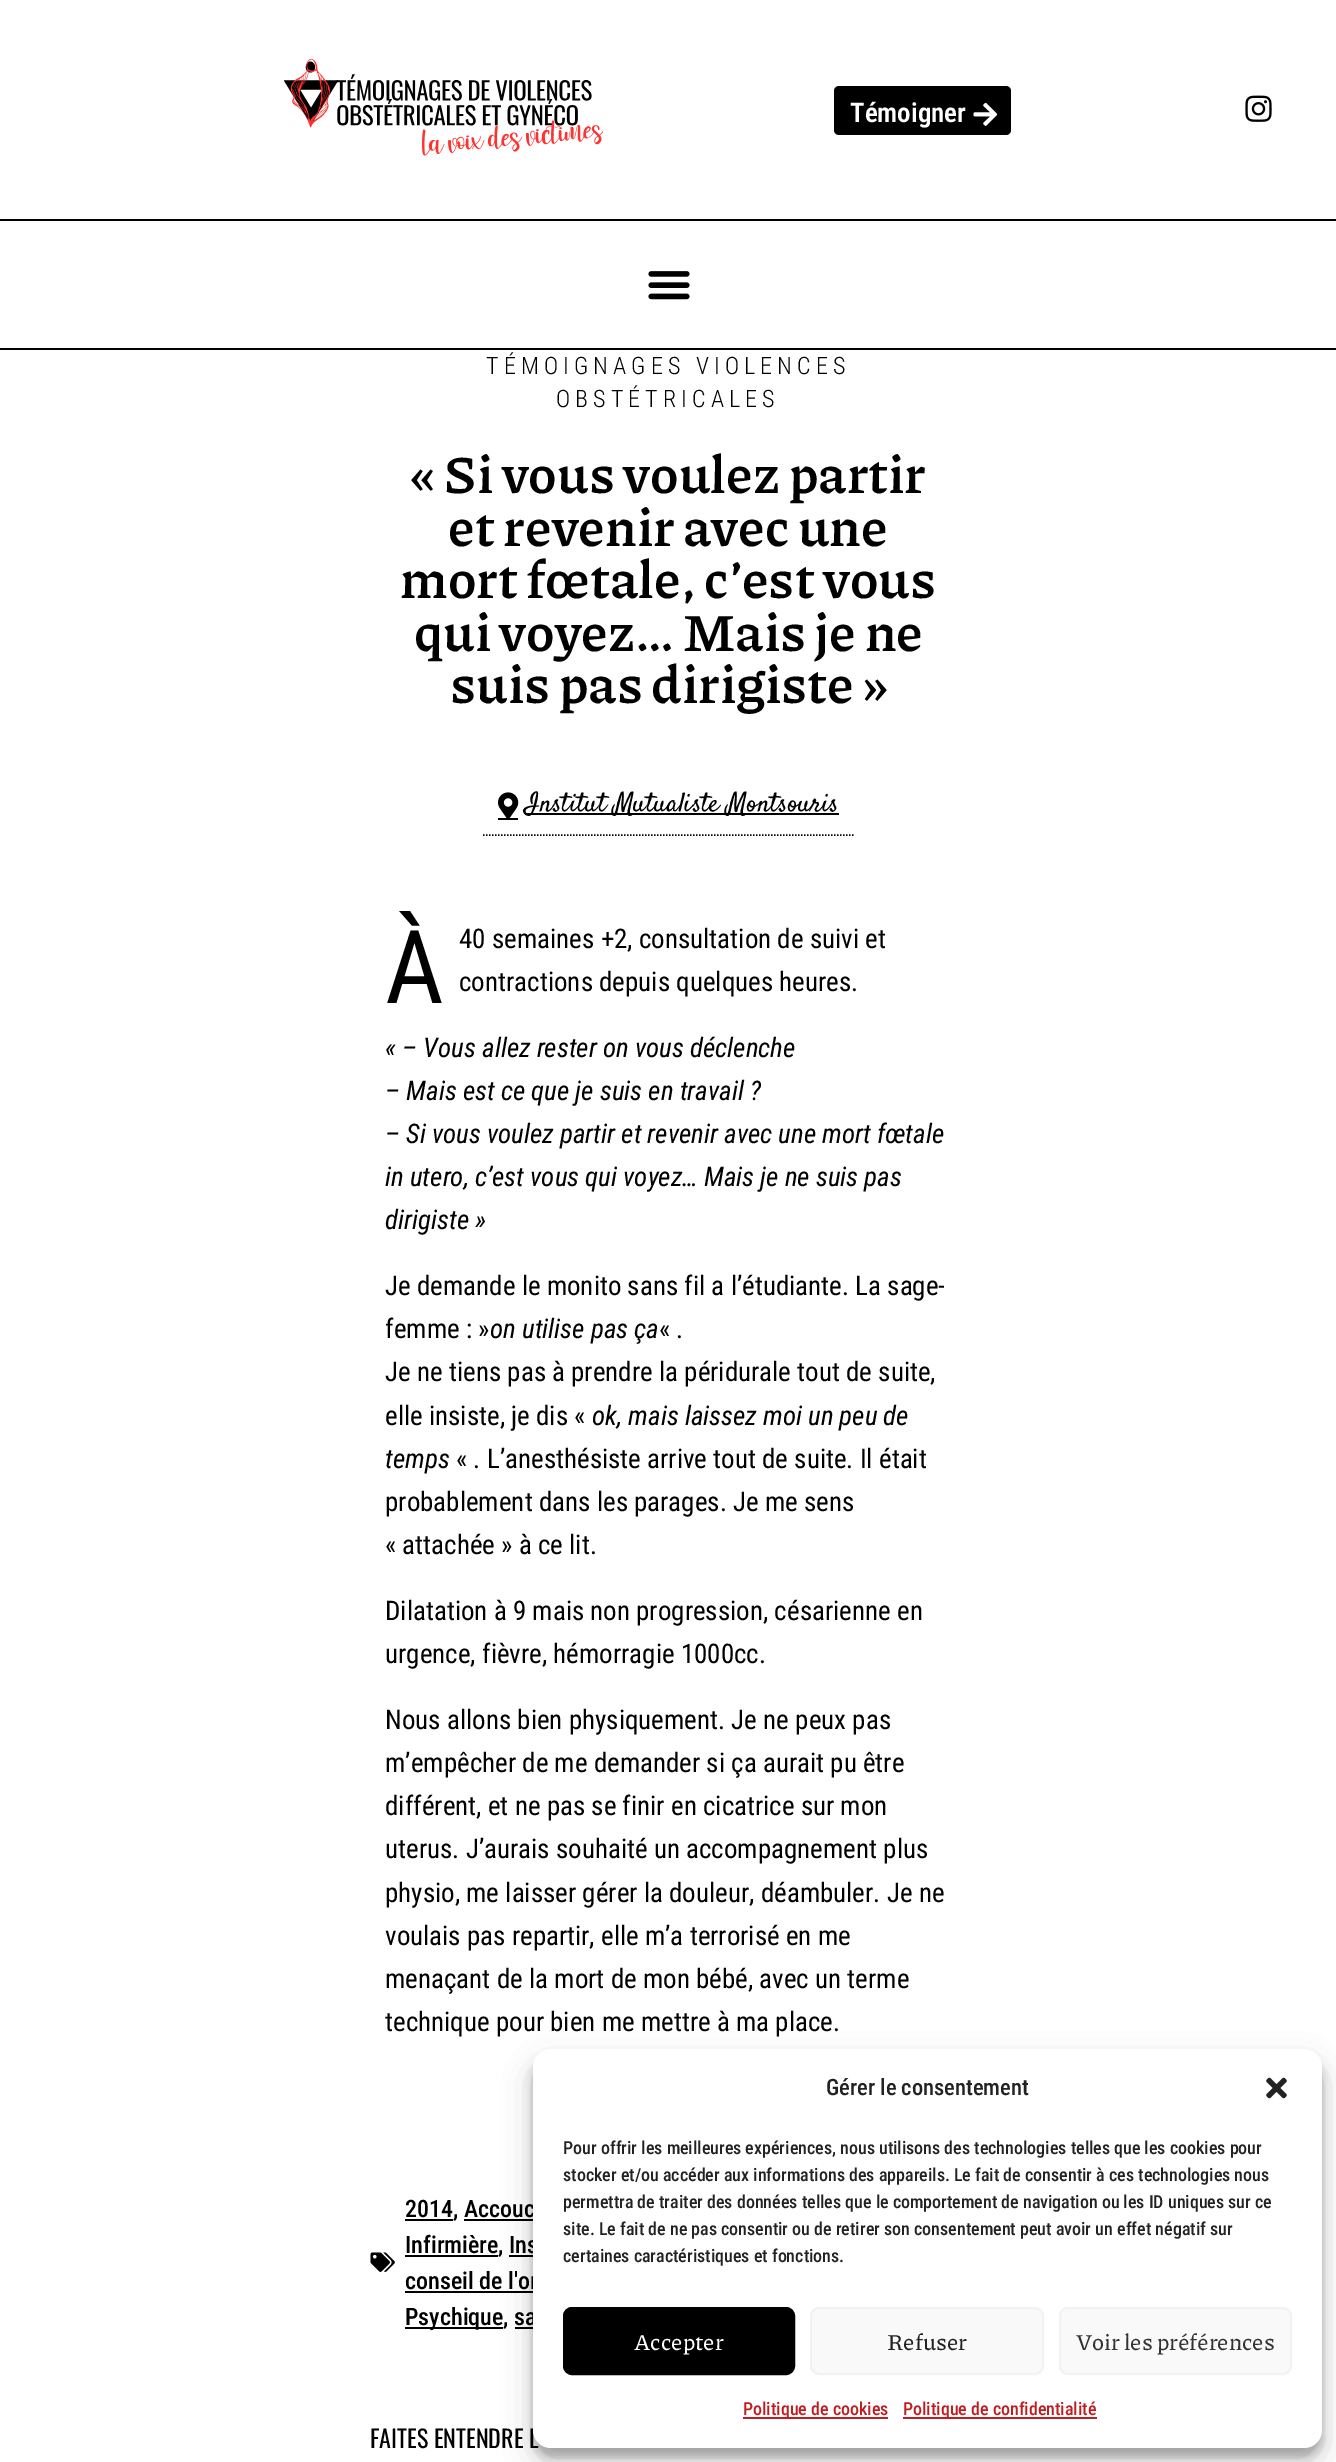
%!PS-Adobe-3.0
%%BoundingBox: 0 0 1336 2462
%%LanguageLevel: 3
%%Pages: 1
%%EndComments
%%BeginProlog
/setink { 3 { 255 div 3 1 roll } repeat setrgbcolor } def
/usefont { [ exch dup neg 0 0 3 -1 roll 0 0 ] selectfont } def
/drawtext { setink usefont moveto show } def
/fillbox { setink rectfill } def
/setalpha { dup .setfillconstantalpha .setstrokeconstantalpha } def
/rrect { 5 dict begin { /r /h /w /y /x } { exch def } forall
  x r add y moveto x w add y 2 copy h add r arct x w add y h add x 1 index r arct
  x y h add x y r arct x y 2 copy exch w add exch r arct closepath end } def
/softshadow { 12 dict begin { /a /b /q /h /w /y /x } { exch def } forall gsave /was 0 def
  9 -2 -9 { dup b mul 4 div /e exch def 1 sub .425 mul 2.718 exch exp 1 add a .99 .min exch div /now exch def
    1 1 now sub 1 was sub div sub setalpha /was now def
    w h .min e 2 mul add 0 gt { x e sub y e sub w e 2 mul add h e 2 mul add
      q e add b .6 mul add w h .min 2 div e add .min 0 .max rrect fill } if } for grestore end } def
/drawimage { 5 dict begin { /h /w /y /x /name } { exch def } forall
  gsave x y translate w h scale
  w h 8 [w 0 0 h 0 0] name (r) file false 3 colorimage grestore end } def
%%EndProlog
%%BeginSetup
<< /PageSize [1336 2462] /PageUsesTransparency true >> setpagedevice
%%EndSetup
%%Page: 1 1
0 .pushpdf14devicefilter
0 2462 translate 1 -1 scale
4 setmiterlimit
0 0 1336 2462 255 255 255 fillbox
(assets/img1.rgb) 283 59 321 97 drawimage
0 0 0 setink
834 86 177 49 5 rrect fill
(Témoigner) 850 122 /RobotoCondensed-SemiBold 27 255 255 255 drawtext
(assets/img2.rgb) 973 102 25 24 drawimage
(assets/img3.rgb) 1245 95 27 27 drawimage
0 219 1336 2 0 0 0 fillbox
0 348 1336 2 0 0 0 fillbox
(assets/img4.rgb) 648 271 42 29 drawimage
/RobotoCondensed-Light 24 usefont
486 374 moveto 5.1 0 (TÉMOIGNAGES VIOLENCES) ashow
556 407 moveto 5.1 0 (OBSTÉTRICALES) ashow
(« Si vous voulez partir) 411 493 /Piazzolla-Bold 52.5 0 0 0 drawtext
(et revenir avec une) 448 546 /Piazzolla-Bold 52.5 0 0 0 drawtext
(mort fœtale, c’est vous) 400 598 /Piazzolla-Bold 52.5 0 0 0 drawtext
(qui voyez… Mais je ne) 414 651 /Piazzolla-Bold 52.5 0 0 0 drawtext
(suis pas dirigiste ») 450 703 /Piazzolla-Bold 52.5 0 0 0 drawtext
1.5 setlinewidth
[1.5 1.5] 0 setdash
483 835 moveto 853.5 835 lineto stroke
(assets/img5.rgb) 498 792 21 26 drawimage
498 818 20 2 0 0 0 fillbox
525 813 314 2 0 0 0 fillbox
(Institut Mutualiste Montsouris) 525 811 /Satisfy-Regular 27 0 0 0 drawtext
(À) 385 1003 /RobotoCondensed-Regular 102 0 0 0 drawtext
(40 semaines +2, consultation de suivi et) 459 948 /RobotoCondensed-Regular 27 0 0 0 drawtext
(contractions depuis quelques heures.) 459 991 /RobotoCondensed-Regular 27 0 0 0 drawtext
(« – Vous allez rester on vous déclenche) 385 1057 /RobotoCondensed-Italic 27 0 0 0 drawtext
(– Mais est ce que je suis en travail ?) 385 1100 /RobotoCondensed-Italic 27 0 0 0 drawtext
(– Si vous voulez partir et revenir avec une mort fœtale) 385 1143 /RobotoCondensed-Italic 27 0 0 0 drawtext
(in utero, c’est vous qui voyez… Mais je ne suis pas) 385 1186 /RobotoCondensed-Italic 27 0 0 0 drawtext
(dirigiste ») 385 1229 /RobotoCondensed-Italic 27 0 0 0 drawtext
(Je demande le monito sans fil a l’étudiante. La sage-) 385 1295 /RobotoCondensed-Regular 27 0 0 0 drawtext
(femme : ») 385 1338 /RobotoCondensed-Regular 27 0 0 0 drawtext
(on utilise pas ça) 490 1338 /RobotoCondensed-Italic 27 0 0 0 drawtext
(« .) 659 1338 /RobotoCondensed-Regular 27 0 0 0 drawtext
(Je ne tiens pas à prendre la péridurale tout de suite,) 385 1381 /RobotoCondensed-Regular 27 0 0 0 drawtext
(elle insiste, je dis «) 385 1425 /RobotoCondensed-Regular 27 0 0 0 drawtext
(ok, mais laissez moi un peu de) 592 1425 /RobotoCondensed-Italic 27 0 0 0 drawtext
(temps) 385 1468 /RobotoCondensed-Italic 27 0 0 0 drawtext
(« . L’anesthésiste arrive tout de suite. Il était) 456 1468 /RobotoCondensed-Regular 27 0 0 0 drawtext
(probablement dans les parages. Je me sens) 385 1511 /RobotoCondensed-Regular 27 0 0 0 drawtext
(« attachée » à ce lit.) 385 1554 /RobotoCondensed-Regular 27 0 0 0 drawtext
(Dilatation à 9 mais non progression, césarienne en) 385 1620 /RobotoCondensed-Regular 27 0 0 0 drawtext
(urgence, fièvre, hémorragie 1000cc.) 385 1663 /RobotoCondensed-Regular 27 0 0 0 drawtext
(Nous allons bien physiquement. Je ne peux pas) 385 1729 /RobotoCondensed-Regular 27 0 0 0 drawtext
(m’empêcher de me demander si ça aurait pu être) 385 1772 /RobotoCondensed-Regular 27 0 0 0 drawtext
(différent, et ne pas se finir en cicatrice sur mon) 385 1815 /RobotoCondensed-Regular 27 0 0 0 drawtext
(uterus. J’aurais souhaité un accompagnement plus) 385 1858 /RobotoCondensed-Regular 27 0 0 0 drawtext
(physio, me laisser gérer la douleur, déambuler. Je ne) 385 1902 /RobotoCondensed-Regular 27 0 0 0 drawtext
(voulais pas repartir, elle m’a terrorisé en me) 385 1945 /RobotoCondensed-Regular 27 0 0 0 drawtext
(menaçant de la mort de mon bébé, avec un terme) 385 1988 /RobotoCondensed-Regular 27 0 0 0 drawtext
(technique pour bien me mettre à ma place.) 385 2031 /RobotoCondensed-Regular 27 0 0 0 drawtext
(assets/img6.rgb) 370 2252 25 20 drawimage
405 2219 48 2 0 0 0 fillbox
(2014, Accouc) 405 2217 /RobotoCondensed-Medium 24 0 0 0 drawtext
464 2219 69 2 0 0 0 fillbox
405 2255 93 2 0 0 0 fillbox
(Infirmière, Ins) 405 2253 /RobotoCondensed-Medium 24 0 0 0 drawtext
509 2255 24 2 0 0 0 fillbox
(conseil de l'or) 405 2289 /RobotoCondensed-Medium 24 0 0 0 drawtext
405 2291 128 2 0 0 0 fillbox
405 2327 98 2 0 0 0 fillbox
(Psychique, sa) 405 2325 /RobotoCondensed-Medium 24 0 0 0 drawtext
515 2327 18 2 0 0 0 fillbox
(FAITES ENTENDRE L) 370 2448 /Oswald-Regular 24 0 0 0 drawtext
533 2058 789 399 18 4.5 0.23 softshadow
533 2064 789 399 18 15 0.19 softshadow
255 255 255 setink
533 2049 789 399 18 rrect fill
(Gérer le consentement) 826 2095 /RobotoCondensed-Medium 22.5 34 34 34 drawtext
(assets/img7.rgb) 1266 2077 21 22 drawimage
(Pour offrir les meilleures expériences, nous utilisons des technologies telles que les cookies pour) 563 2154 /RobotoCondensed-Medium 18 34 34 34 drawtext
(stocker et/ou accéder aux informations des appareils. Le fait de consentir à ces technologies nous) 563 2181 /RobotoCondensed-Medium 18 34 34 34 drawtext
(permettra de traiter des données telles que le comportement de navigation ou les ID uniques sur ce) 563 2208 /RobotoCondensed-Medium 18 34 34 34 drawtext
(site. Le fait de ne pas consentir ou de retirer son consentement peut avoir un effet négatif sur) 563 2235 /RobotoCondensed-Medium 18 34 34 34 drawtext
(certaines caractéristiques et fonctions.) 563 2262 /RobotoCondensed-Medium 18 34 34 34 drawtext
0 0 0 setink
564 2308 230 66 8 rrect gsave fill grestore
2 setlinewidth
[] 0 setdash
stroke
(Accepter) 634 2350 /Piazzolla-Medium 22.5 255 255 255 drawtext
249 249 249 setink
811 2308 232 66 8 rrect gsave fill grestore
242 242 242 setink
stroke
(Refuser) 887 2350 /Piazzolla-Medium 22.5 34 34 34 drawtext
249 249 249 setink
1060 2308 231 66 8 rrect gsave fill grestore
242 242 242 setink
stroke
(Voir les préférences) 1076 2350 /Piazzolla-Medium 22.5 51 51 51 drawtext
743 2417 145 2 190 30 33 fillbox
(Politique de cookies) 743 2415 /RobotoCondensed-Medium 18 190 30 33 drawtext
903 2417 194 2 190 30 33 fillbox
(Politique de confidentialité) 903 2415 /RobotoCondensed-Medium 18 190 30 33 drawtext
.poppdf14devicefilter showpage
%%EOF
